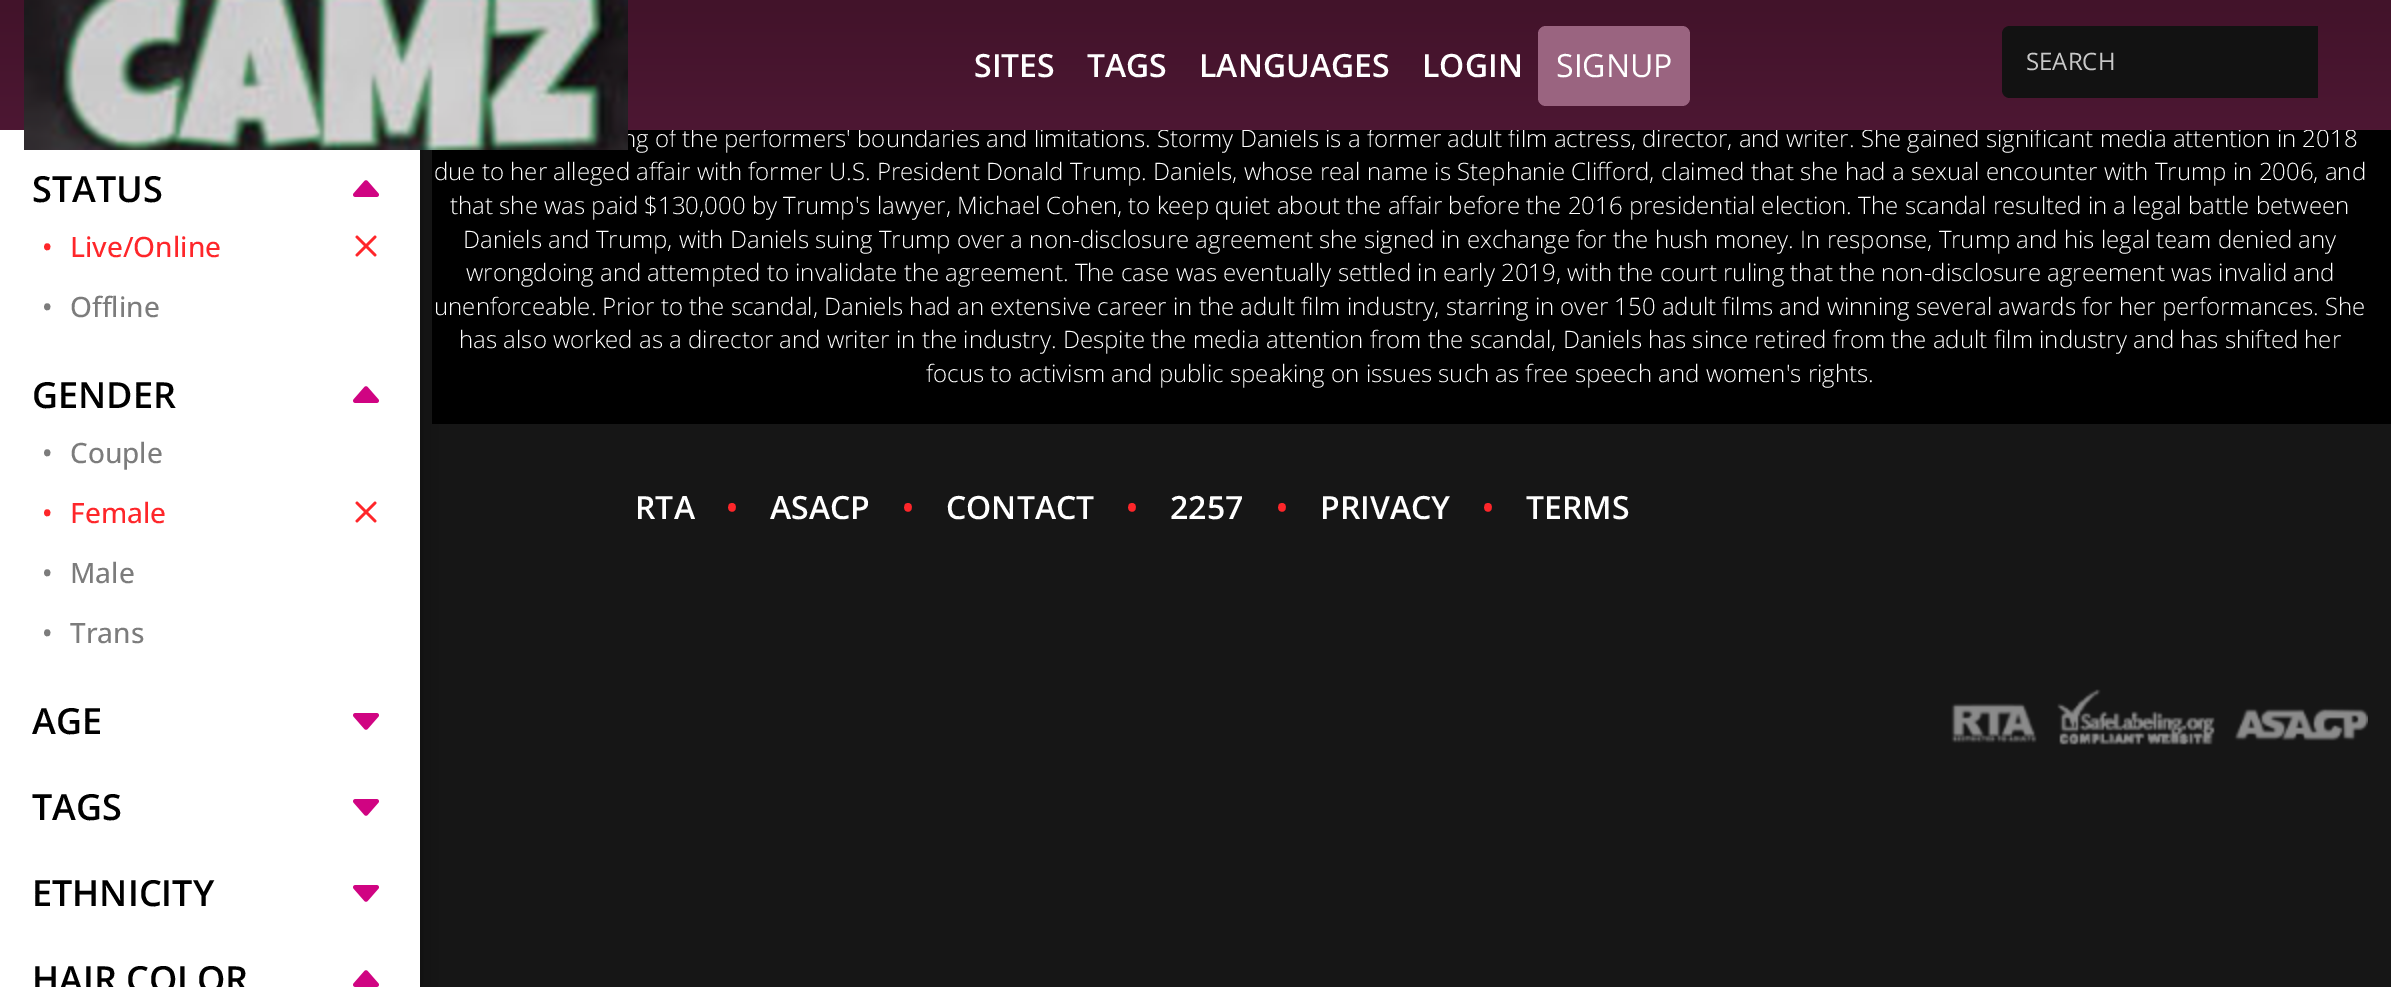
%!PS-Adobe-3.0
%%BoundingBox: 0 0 2391 987
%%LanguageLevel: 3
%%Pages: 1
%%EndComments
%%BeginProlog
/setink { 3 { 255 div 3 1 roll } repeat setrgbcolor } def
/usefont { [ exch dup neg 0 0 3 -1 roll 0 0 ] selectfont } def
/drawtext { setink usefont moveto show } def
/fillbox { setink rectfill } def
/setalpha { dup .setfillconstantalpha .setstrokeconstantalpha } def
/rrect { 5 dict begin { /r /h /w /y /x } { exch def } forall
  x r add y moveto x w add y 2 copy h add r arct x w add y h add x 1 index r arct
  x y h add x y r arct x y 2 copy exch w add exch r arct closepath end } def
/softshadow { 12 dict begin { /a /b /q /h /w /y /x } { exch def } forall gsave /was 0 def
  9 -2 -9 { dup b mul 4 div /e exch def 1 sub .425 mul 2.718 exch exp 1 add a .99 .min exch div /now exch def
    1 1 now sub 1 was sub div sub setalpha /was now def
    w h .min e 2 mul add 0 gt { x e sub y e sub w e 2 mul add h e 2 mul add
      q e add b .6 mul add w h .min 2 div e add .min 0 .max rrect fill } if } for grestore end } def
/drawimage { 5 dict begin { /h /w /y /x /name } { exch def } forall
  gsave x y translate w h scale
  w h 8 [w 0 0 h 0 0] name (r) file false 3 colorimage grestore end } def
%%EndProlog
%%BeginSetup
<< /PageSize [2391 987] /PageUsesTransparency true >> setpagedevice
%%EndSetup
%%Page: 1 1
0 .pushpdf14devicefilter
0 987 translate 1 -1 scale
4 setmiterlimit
0 0 2391 987 22 22 22 fillbox
432 130 1959 294 0 0 0 fillbox
0 130 420 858 0 15 0.4 softshadow
(ng of the performers' boundaries and limitations. Stormy Daniels is a former adult film actress, director, and writer. She gained significant media attention in 2018) 622 147 /OpenSans-Light 24 255 255 255 drawtext
gsave 0 0 moveto 2391 0 lineto 2391 130 lineto 0 130 lineto closepath clip newpath
<< /ShadingType 2 /ColorSpace /DeviceRGB /Coords [1196 0 1196 130] /Extend [true true] /Function << /FunctionType 2 /Domain [0 1] /C0 [0.259 0.075 0.165] /C1 [0.302 0.09 0.2] /N 1 >> >> shfill grestore
0 130 420 857 255 255 255 fillbox
(assets/img1.rgb) 24 0 604 150 drawimage
(SITES) 974 77 /OpenSans-SemiBold 32 255 255 255 drawtext
(TAGS) 1087 77 /OpenSans-SemiBold 32 255 255 255 drawtext
(LANGUAGES) 1199 77 /OpenSans-SemiBold 32 255 255 255 drawtext
(LOGIN) 1422 77 /OpenSans-SemiBold 32 255 255 255 drawtext
154 100 128 setink
1538 26 152 80 8 rrect fill
(SIGNUP) 1556 77 /OpenSans-Regular 32 255 255 255 drawtext
18 18 18 setink
2010 26 moveto 2318 26 lineto 2318 98 lineto 2010 98 lineto 2005.5 98 2002 94.5 2002 90 curveto 2002 34 lineto 2002 29.5 2005.5 26 2010 26 curveto closepath fill
(SEARCH) 2026 70 /OpenSans-Regular 24 200 200 200 drawtext
(STATUS) 32 202 /OpenSans-SemiBold 36 0 0 0 drawtext
(assets/img2.rgb) 353 180 26 17 drawimage
(•) 42 257 /OpenSans-Medium 28 254 38 42 drawtext
(Live/Online) 70 257 /OpenSans-Medium 28 254 38 42 drawtext
(assets/img3.rgb) 355 235 22 22 drawimage
(•) 42 317 /OpenSans-Medium 28 124 124 124 drawtext
(Offline) 70 317 /OpenSans-Medium 28 124 124 124 drawtext
(GENDER) 32 408 /OpenSans-SemiBold 36 0 0 0 drawtext
(assets/img2.rgb) 353 386 26 17 drawimage
(•) 42 463 /OpenSans-Medium 28 124 124 124 drawtext
(Couple) 70 463 /OpenSans-Medium 28 124 124 124 drawtext
(•) 42 523 /OpenSans-Medium 28 254 38 42 drawtext
(Female) 70 523 /OpenSans-Medium 28 254 38 42 drawtext
(assets/img3.rgb) 355 501 22 22 drawimage
(•) 42 583 /OpenSans-Medium 28 124 124 124 drawtext
(Male) 70 583 /OpenSans-Medium 28 124 124 124 drawtext
(•) 42 643 /OpenSans-Medium 28 124 124 124 drawtext
(Trans) 70 643 /OpenSans-Medium 28 124 124 124 drawtext
(AGE) 32 734 /OpenSans-SemiBold 36 0 0 0 drawtext
(assets/img4.rgb) 353 713 26 17 drawimage
(TAGS) 32 820 /OpenSans-SemiBold 36 0 0 0 drawtext
(assets/img4.rgb) 353 799 26 17 drawimage
(ETHNICITY) 32 906 /OpenSans-SemiBold 36 0 0 0 drawtext
(assets/img4.rgb) 353 885 26 17 drawimage
(HAIR COLOR) 32 992 /OpenSans-SemiBold 36 0 0 0 drawtext
(assets/img2.rgb) 353 970 26 17 drawimage
(due to her alleged affair with former U.S. President Donald Trump. Daniels, whose real name is Stephanie Clifford, claimed that she had a sexual encounter with Trump in 2006, and) 434 180 /OpenSans-Light 24 255 255 255 drawtext
(that she was paid $130,000 by Trump's lawyer, Michael Cohen, to keep quiet about the affair before the 2016 presidential election. The scandal resulted in a legal battle between) 450 214 /OpenSans-Light 24 255 255 255 drawtext
(Daniels and Trump, with Daniels suing Trump over a non-disclosure agreement she signed in exchange for the hush money. In response, Trump and his legal team denied any) 463 248 /OpenSans-Light 24 255 255 255 drawtext
(wrongdoing and attempted to invalidate the agreement. The case was eventually settled in early 2019, with the court ruling that the non-disclosure agreement was invalid and) 466 281 /OpenSans-Light 24 255 255 255 drawtext
(unenforceable. Prior to the scandal, Daniels had an extensive career in the adult film industry, starring in over 150 adult films and winning several awards for her performances. She) 434 315 /OpenSans-Light 24 255 255 255 drawtext
(has also worked as a director and writer in the industry. Despite the media attention from the scandal, Daniels has since retired from the adult film industry and has shifted her) 459 348 /OpenSans-Light 24 255 255 255 drawtext
(focus to activism and public speaking on issues such as free speech and women's rights.) 926 382 /OpenSans-Light 24 255 255 255 drawtext
(RTA) 635 519 /OpenSans-SemiBold 32 255 255 255 drawtext
(•) 726 519 /OpenSans-SemiBold 32 254 38 42 drawtext
(ASACP) 770 519 /OpenSans-SemiBold 32 255 255 255 drawtext
(•) 902 519 /OpenSans-SemiBold 32 254 38 42 drawtext
(CONTACT) 946 519 /OpenSans-SemiBold 32 255 255 255 drawtext
(•) 1126 519 /OpenSans-SemiBold 32 254 38 42 drawtext
(2257) 1170 519 /OpenSans-SemiBold 32 255 255 255 drawtext
(•) 1276 519 /OpenSans-SemiBold 32 254 38 42 drawtext
(PRIVACY) 1320 519 /OpenSans-SemiBold 32 255 255 255 drawtext
(•) 1482 519 /OpenSans-SemiBold 32 254 38 42 drawtext
(TERMS) 1526 519 /OpenSans-SemiBold 32 255 255 255 drawtext
(assets/img5.rgb) 1951 689 417 56 drawimage
.poppdf14devicefilter showpage
%%EOF
